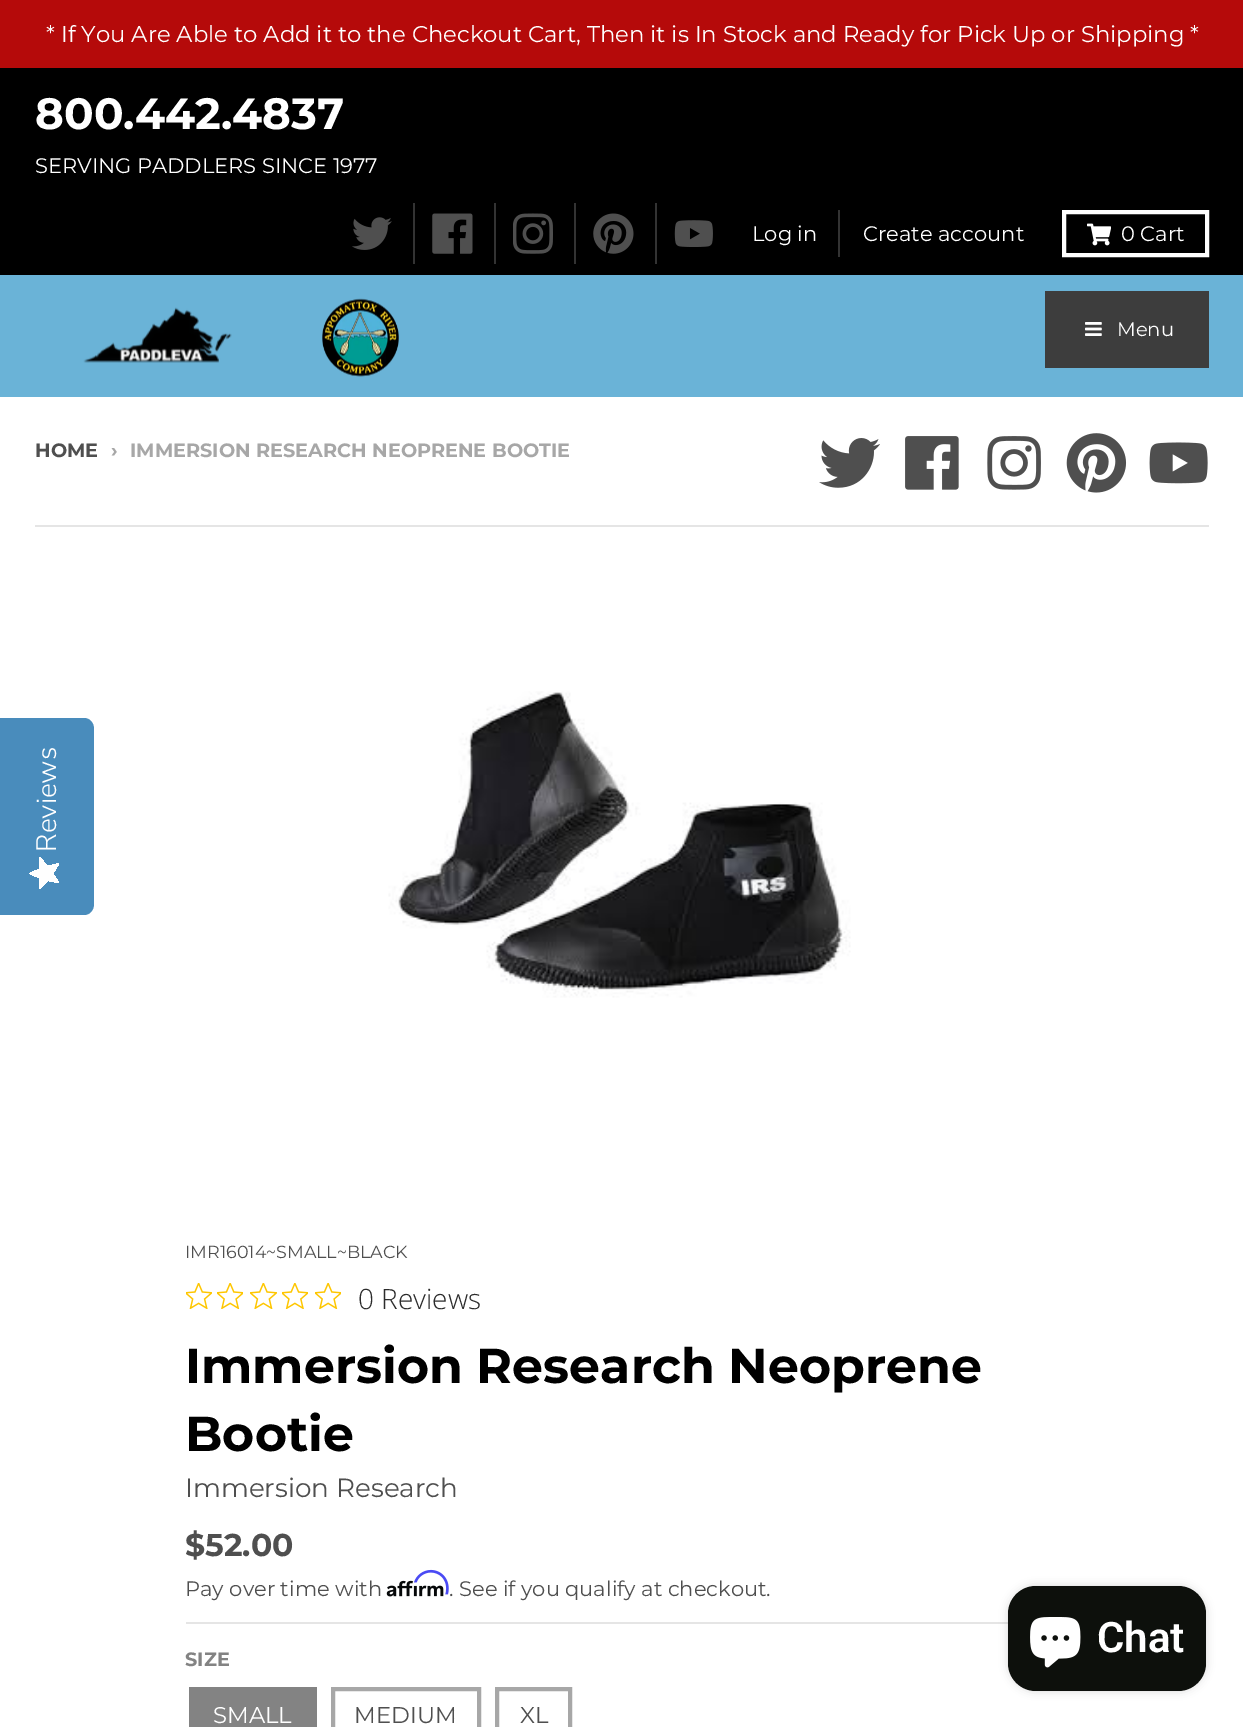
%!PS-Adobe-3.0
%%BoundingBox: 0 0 1243 1727
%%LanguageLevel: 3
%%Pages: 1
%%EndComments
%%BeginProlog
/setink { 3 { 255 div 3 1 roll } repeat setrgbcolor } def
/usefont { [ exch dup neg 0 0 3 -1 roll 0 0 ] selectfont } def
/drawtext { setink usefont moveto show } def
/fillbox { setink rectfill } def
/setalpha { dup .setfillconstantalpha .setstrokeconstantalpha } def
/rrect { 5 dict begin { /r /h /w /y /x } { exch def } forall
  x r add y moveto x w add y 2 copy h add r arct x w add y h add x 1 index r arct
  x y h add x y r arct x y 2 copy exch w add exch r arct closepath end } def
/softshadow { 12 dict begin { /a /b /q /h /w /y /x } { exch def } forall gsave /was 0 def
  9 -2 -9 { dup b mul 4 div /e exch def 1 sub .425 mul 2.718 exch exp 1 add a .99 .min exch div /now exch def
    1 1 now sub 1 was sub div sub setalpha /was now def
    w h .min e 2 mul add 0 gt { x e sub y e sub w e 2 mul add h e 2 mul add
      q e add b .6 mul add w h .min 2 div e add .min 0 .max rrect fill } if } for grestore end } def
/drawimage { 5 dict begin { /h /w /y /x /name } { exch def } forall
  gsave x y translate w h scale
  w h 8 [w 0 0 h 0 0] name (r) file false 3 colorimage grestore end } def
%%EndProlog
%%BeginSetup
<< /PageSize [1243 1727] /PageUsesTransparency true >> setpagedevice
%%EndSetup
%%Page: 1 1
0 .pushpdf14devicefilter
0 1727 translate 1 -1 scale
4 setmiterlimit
0 0 1243 1727 255 255 255 fillbox
0 0 1243 68 181 10 10 fillbox
(* If You Are Able to Add it to the Checkout Cart, Then it is In Stock and Ready for Pick Up or Shipping *) 46 42 /Montserrat-Thin 22.75 255 255 255 drawtext
0 68 1243 207 0 0 0 fillbox
(800.442.4837) 35 129 /Montserrat-Bold 43.75 255 255 255 drawtext
(SERVING PADDLERS SINCE 1977) 35 173 /Montserrat-Thin 21 255 255 255 drawtext
413 203 2 61 51 51 51 fillbox
(assets/img1.rgb) 352 217 40 33 drawimage
494 203 2 61 51 51 51 fillbox
(assets/img2.rgb) 432 213 41 41 drawimage
574 203 2 61 51 51 51 fillbox
(assets/img3.rgb) 513 213 40 41 drawimage
655 203 2 61 51 51 51 fillbox
(assets/img4.rgb) 593 213 41 41 drawimage
(assets/img5.rgb) 674 220 39 27 drawimage
838 210 2 47 51 51 51 fillbox
(Log in) 752 241 /Montserrat-Thin 21 255 255 255 drawtext
(Create account) 863 241 /Montserrat-Thin 21 255 255 255 drawtext
4 setlinewidth
1064 212 143 43 rectstroke
(assets/img6.rgb) 1087 223 24 23 drawimage
(0 Cart) 1121 241 /Montserrat-Thin 21 255 255 255 drawtext
0 275 1243 122 106 179 215 fillbox
(assets/img7.rgb) 83 307 149 56 drawimage
(assets/img8.rgb) 322 298 77 79 drawimage
1045 291 164 77 61 61 61 fillbox
(assets/img9.rgb) 1085 322 17 14 drawimage
(Menu) 1117 336 /Montserrat-Thin 19.5 255 255 255 drawtext
(HOME) 35 457 /Montserrat-Bold 19.25 79 79 79 drawtext
(›) 111 457 /Montserrat-Bold 19.25 167 167 167 drawtext
(IMMERSION RESEARCH NEOPRENE BOOTIE) 130 457 /Montserrat-Bold 19.25 167 167 167 drawtext
(assets/img10.rgb) 819 438 61 50 drawimage
(assets/img11.rgb) 905 436 54 54 drawimage
(assets/img12.rgb) 987 436 54 54 drawimage
(assets/img13.rgb) 1066 433 61 60 drawimage
(assets/img14.rgb) 1149 442 59 42 drawimage
35 525 1174 2 229 229 229 fillbox
(assets/img15.rgb) 388 691 463 307 drawimage
(IMR16014~SMALL~BLACK) 185 1258 /Montserrat-Thin 17.5 79 79 79 drawtext
(assets/img16.rgb) 186 1283 26 26 drawimage
(assets/img17.rgb) 217 1283 26 26 drawimage
(assets/img18.rgb) 250 1283 27 26 drawimage
(assets/img19.rgb) 282 1283 26 26 drawimage
(assets/img17.rgb) 315 1283 26 26 drawimage
(0 Reviews) 358 1309 /OpenSans-Light 28 44 44 44 drawtext
(Immersion Research Neoprene) 185 1383 /Montserrat-Bold 49 0 0 0 drawtext
(Bootie) 185 1451 /Montserrat-Bold 49 0 0 0 drawtext
(Immersion Research) 185 1497 /Montserrat-Thin 26.25 79 79 79 drawtext
186 1622 822 2 229 229 229 fillbox
($52.00) 185 1556 /Montserrat-Bold 31.5 79 79 79 drawtext
(Pay over time with) 185 1596 /Montserrat-Thin 21 79 79 79 drawtext
(assets/img21.rgb) 386 1580 58 17 drawimage
(assets/img20.rgb) 414 1569 35 26 drawimage
(. See if you qualify at checkout.) 449 1596 /Montserrat-Thin 21 79 79 79 drawtext
(SIZE) 185 1666 /Montserrat-Bold 19.25 131 131 131 drawtext
189 1687 128 40 131 131 131 fillbox
(SMALL) 213 1723 /Montserrat-Thin 22.75 255 255 255 drawtext
167 167 167 setink
333 1689 146 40 rectstroke
(MEDIUM) 354 1723 /Montserrat-Thin 22.75 79 79 79 drawtext
167 167 167 setink
497 1689 73 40 rectstroke
(XL) 520 1723 /Montserrat-Thin 22.75 79 79 79 drawtext
73 140 188 setink
0 915 moveto 0 718 lineto 84 718 lineto 90 718 94 723 94 729 curveto 94 904 lineto 94 910 90 915 84 915 curveto closepath fill
/NunitoSans-Light 28 usefont
255 255 255 setink
gsave 56 852 translate -90 rotate 0 0 moveto (Reviews) show grestore
gsave 53 873.5 moveto 59 863.5 lineto 47.5 866 lineto 40 857.5 lineto 39.5 869 lineto 29 873.5 lineto 39.5 878 lineto 40 889 lineto 47.5 880.5 lineto 59 883 lineto closepath clip newpath
<< /ShadingType 2 /ColorSpace /DeviceRGB /Coords [29 889 29 858] /Extend [true true] /Function << /FunctionType 2 /Domain [0 1] /C0 [0.996 0.996 0.996] /C1 [0.996 0.996 0.996] /N 1 >> >> shfill grestore
0 0 0 setink
1008 1586 198 105 28 4.5 0.15 softshadow
13 16 12 setink
1008 1586 198 105 28 rrect fill
(assets/img22.rgb) 1030 1617 51 51 drawimage
(Chat) 1097 1652 /Roboto-SemiBold 42 255 255 255 drawtext
.poppdf14devicefilter showpage
%%EOF
